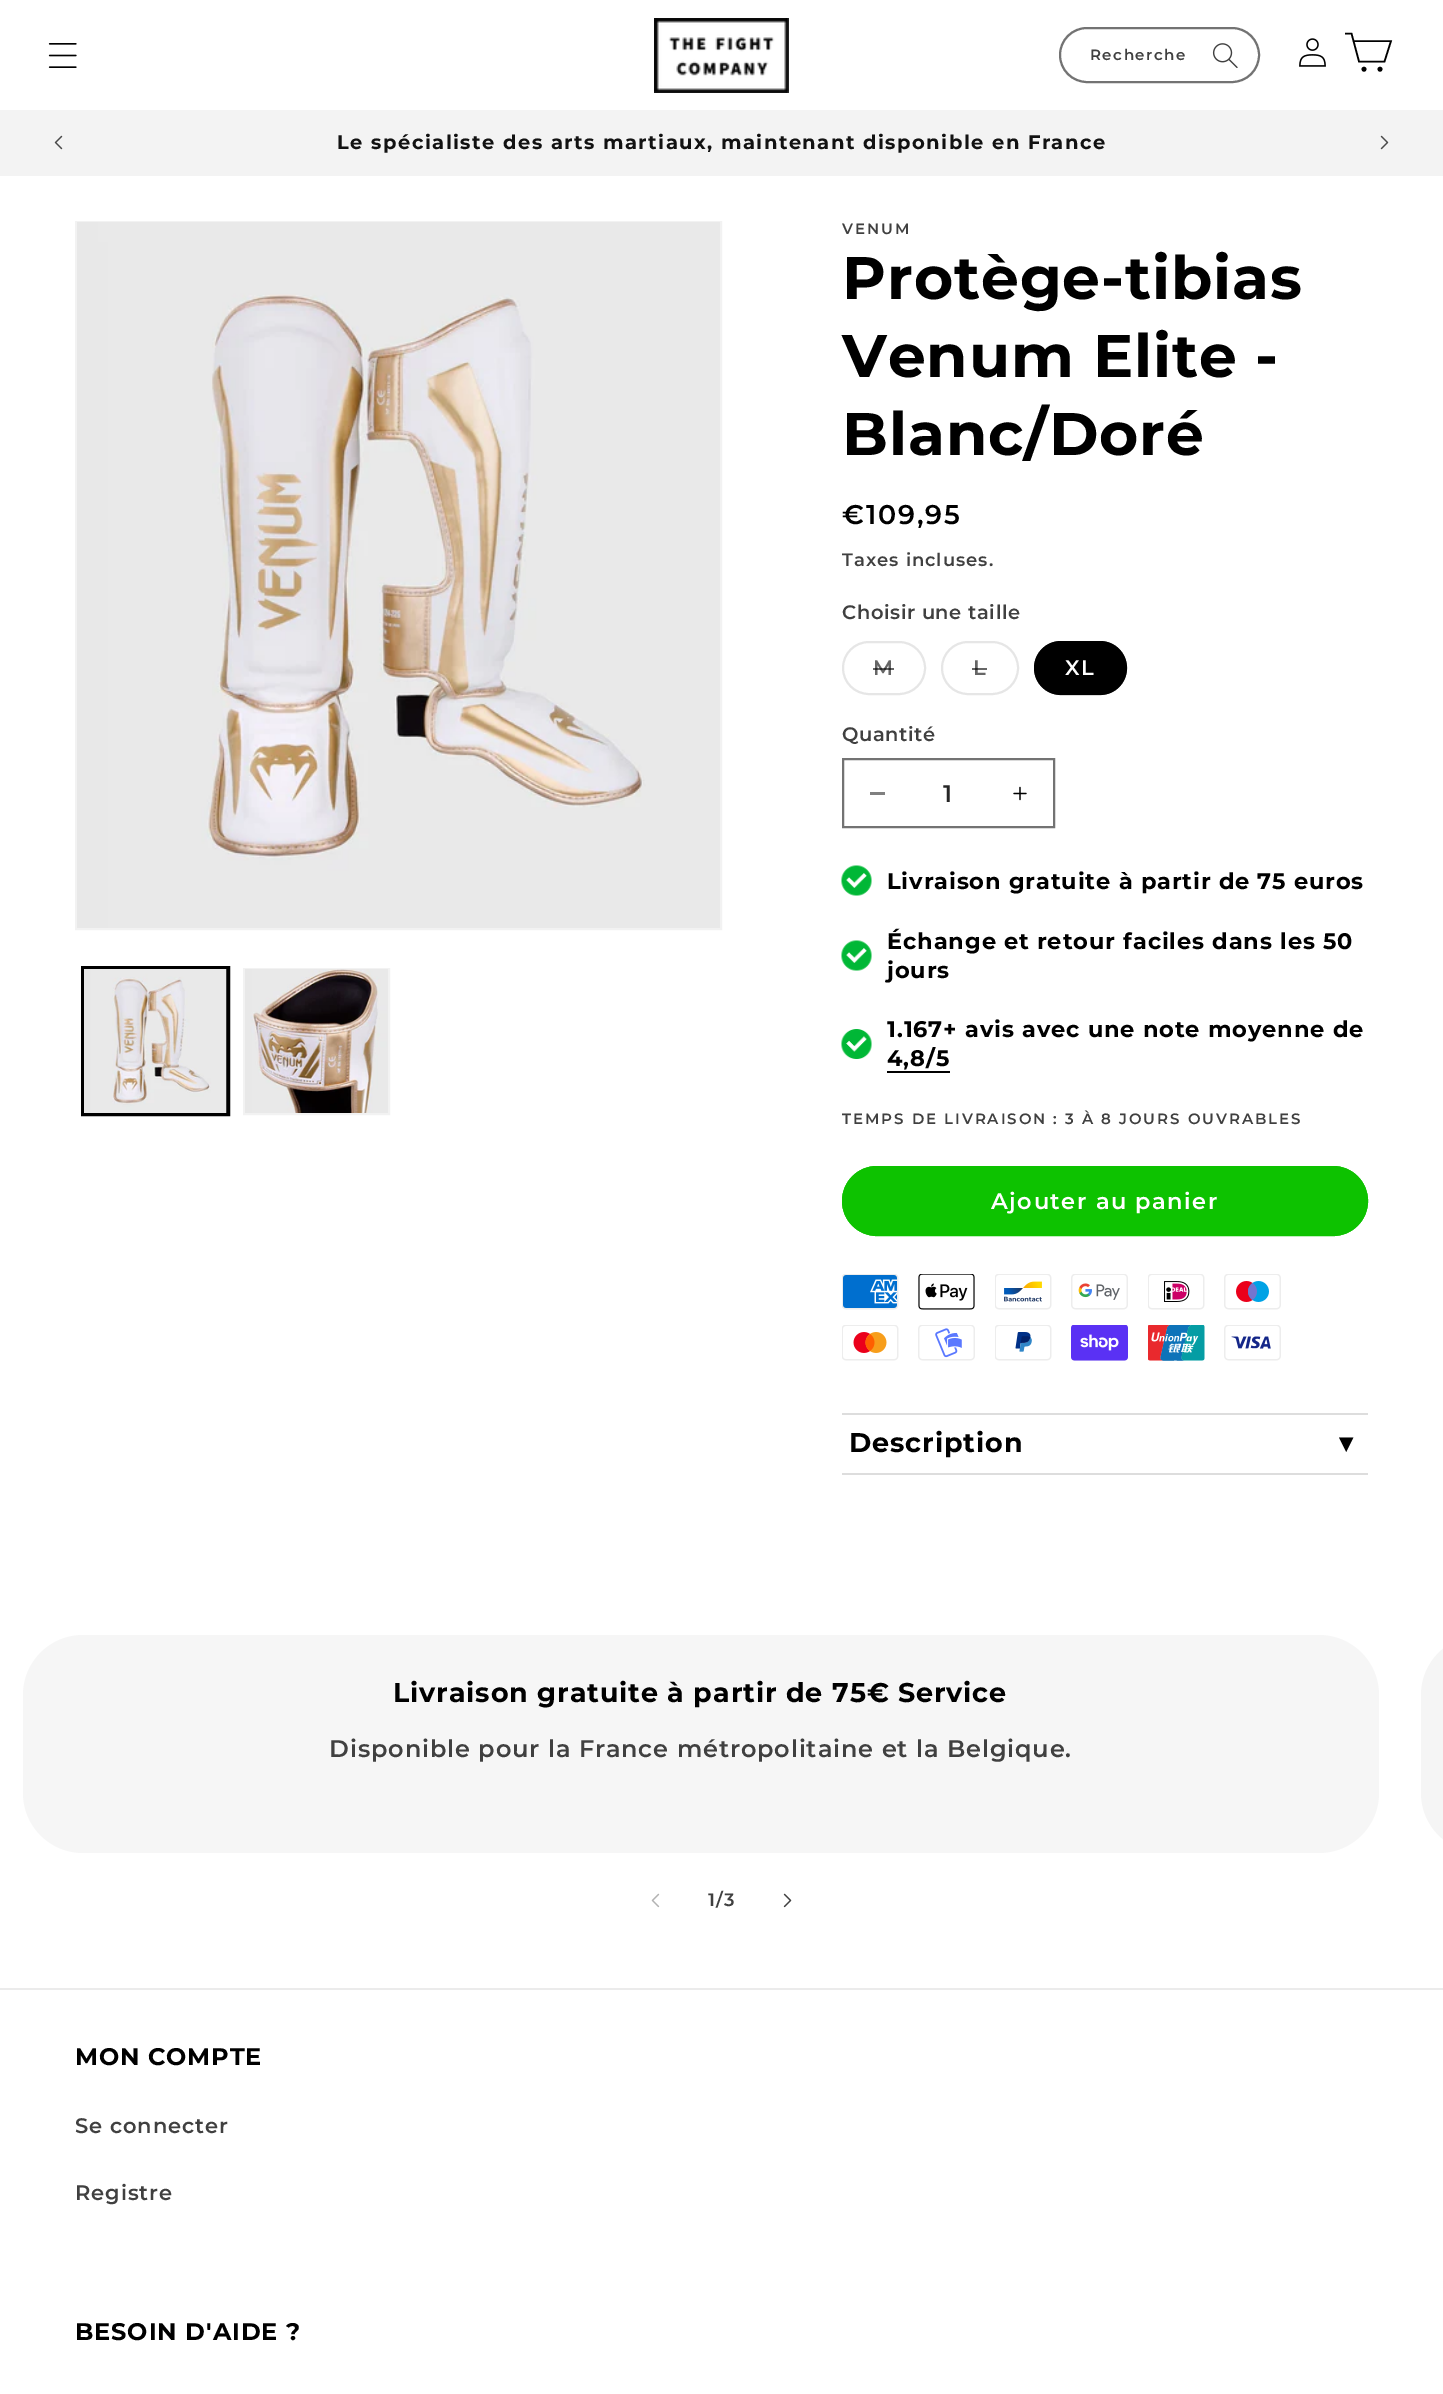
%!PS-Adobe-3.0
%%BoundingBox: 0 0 1443 2394
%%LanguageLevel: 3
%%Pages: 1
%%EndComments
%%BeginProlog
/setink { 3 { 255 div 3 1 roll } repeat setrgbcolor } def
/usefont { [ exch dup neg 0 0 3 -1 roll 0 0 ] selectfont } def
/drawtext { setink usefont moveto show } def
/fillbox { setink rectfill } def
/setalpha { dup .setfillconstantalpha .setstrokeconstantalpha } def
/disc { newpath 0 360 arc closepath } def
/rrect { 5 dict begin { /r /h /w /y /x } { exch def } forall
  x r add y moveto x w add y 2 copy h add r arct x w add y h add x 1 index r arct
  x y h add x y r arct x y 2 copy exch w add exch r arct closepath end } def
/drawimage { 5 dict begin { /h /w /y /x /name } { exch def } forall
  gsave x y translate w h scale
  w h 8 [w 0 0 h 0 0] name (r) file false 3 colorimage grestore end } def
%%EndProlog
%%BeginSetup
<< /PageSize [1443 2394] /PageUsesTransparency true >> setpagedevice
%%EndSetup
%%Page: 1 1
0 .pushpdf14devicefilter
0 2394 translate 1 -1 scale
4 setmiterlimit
0 0 1443 2394 255 255 255 fillbox
(assets/img1.rgb) 48 43 29 25 drawimage
(assets/img2.rgb) 654 18 135 75 drawimage
(assets/img3.rgb) 1212 43 26 25 drawimage
115 115 115 setink
2 setlinewidth
1060 28 199 54 27 rrect stroke
/Montserrat-SemiBold 15 usefont
64 64 64 setink
1090 60 moveto 1.5 0 (Recherche) ashow
(assets/img4.rgb) 1299 38 27 29 drawimage
0 0 0 setink
1.6 setlinewidth
1353.5 41 moveto 1391 41 lineto 1384.5 61.5 lineto 1359 61.5 lineto 1351.5 33.5 lineto 1345 33.5 lineto stroke
1364 69.2 2.4 disc fill
1380 69.2 2.4 disc fill
0 110 1443 66 243 243 243 fillbox
(assets/img5.rgb) 54 135 9 15 drawimage
/Montserrat-Bold 19.5 usefont
18 18 18 setink
337 149 moveto 1.5 0 (Le spécialiste des arts martiaux, maintenant disponible en France) ashow
(assets/img6.rgb) 1380 135 9 15 drawimage
242 242 242 setink
2 setlinewidth
76 222 645 707 rectstroke
(assets/img7.rgb) 77 222 643 706 drawimage
0 0 0 setink
82 967 147 148 rectstroke
84 969 143 145 rectstroke
(assets/img8.rgb) 84 969 143 144 drawimage
242 242 242 setink
244 969 145 145 rectstroke
(assets/img9.rgb) 245 969 143 144 drawimage
/Montserrat-SemiBold 15 usefont
64 64 64 setink
842 234 moveto 1.95 0 (VENUM) ashow
/Montserrat-Bold 60 usefont
0 0 0 setink
842 299 moveto 0.9 0 (Protège-tibias) ashow
842 377 moveto 0.9 0 (Venum Elite -) ashow
842 455 moveto 0.9 0 (Blanc/Doré) ashow
/Montserrat-SemiBold 27 usefont
842 524 moveto 1.95 0 (€109,95) ashow
/Montserrat-SemiBold 18 usefont
64 64 64 setink
842 566 moveto 1 0 (Taxes incluses.) ashow
/Montserrat-SemiBold 19.5 usefont
842 619 moveto 0.6 0 (Choisir une taille) ashow
230 230 230 setink
843 642 82 52 26 rrect stroke
/Montserrat-SemiBold 21 usefont
102 102 102 setink
873 675 moveto 1.5 0 (M) ashow
0.6 setalpha
873 668 21 2 0 0 0 fillbox
1 setalpha
230 230 230 setink
942 642 76 52 26 rrect stroke
102 102 102 setink
973 675 moveto 1.5 0 (L) ashow
0.6 setalpha
972 668 15 2 0 0 0 fillbox
1 setalpha
1034 641 93 54 27 rrect fill
0.55 setalpha
1035 642 91 52 26 rrect stroke
1 setalpha
255 255 255 setink
1065 675 moveto 1.5 0 (XL) ashow
/Montserrat-SemiBold 19.5 usefont
64 64 64 setink
842 741 moveto 0.6 0 (Quantité) ashow
870 792 15 3 128 128 128 fillbox
(assets/img10.rgb) 1013 786 14 15 drawimage
115 115 115 setink
843 759 211 68 rectstroke
(1) 943 802 /Montserrat-SemiBold 24 38 38 38 drawtext
(assets/img11.rgb) 841 865 31 31 drawimage
/Montserrat-Bold 22.5 usefont
0 0 0 setink
887 889 moveto 0.9 0 (Livraison gratuite à partir de 75 euros) ashow
(assets/img11.rgb) 841 940 31 31 drawimage
887 949 moveto 0.9 0 (Échange et retour faciles dans les 50) ashow
887 978 moveto 0.9 0 (jours) ashow
(assets/img12.rgb) 841 1029 31 30 drawimage
887 1037 moveto 0.9 0 (1.167+ avis avec une note moyenne de) ashow
887 1066 moveto 0.9 0 (4,8/5) ashow
887 1071 63 2 0 0 0 fillbox
/Montserrat-SemiBold 15 usefont
64 64 64 setink
842 1124 moveto 1.95 0 (TEMPS DE LIVRAISON : 3 À 8 JOURS OUVRABLES) ashow
13 194 0 setink
842 1166 526 70 35 rrect fill
843 1167 524 68 34 rrect stroke
/Montserrat-SemiBold 22.5 usefont
255 255 255 setink
991 1209 moveto 1.5 0 (Ajouter au panier) ashow
(assets/img13.rgb) 842 1274 57 36 drawimage
(assets/img14.rgb) 918 1274 57 36 drawimage
(assets/img15.rgb) 995 1274 57 36 drawimage
(assets/img16.rgb) 1071 1274 57 36 drawimage
(assets/img17.rgb) 1148 1274 57 36 drawimage
(assets/img18.rgb) 1224 1274 57 36 drawimage
(assets/img19.rgb) 842 1325 57 36 drawimage
(assets/img20.rgb) 918 1325 57 36 drawimage
(assets/img21.rgb) 995 1325 57 36 drawimage
(assets/img22.rgb) 1071 1325 57 36 drawimage
(assets/img23.rgb) 1148 1325 57 36 drawimage
(assets/img24.rgb) 1224 1325 57 36 drawimage
842 1413 526 2 221 221 221 fillbox
842 1473 526 2 221 221 221 fillbox
/Montserrat-Bold 27 usefont
0 0 0 setink
849 1452 moveto 0.9 0 (Description) ashow
/DejaVuSans-Bold 27 usefont
1339 1452 moveto 0.9 0 (▾) ashow
246 246 246 setink
23 1635 1356 218 60 rrect fill
/Montserrat-Bold 27 usefont
0 0 0 setink
393 1702 moveto 0.9 0 (Livraison gratuite à partir de 75€ Service) ashow
/Montserrat-SemiBold 24 usefont
64 64 64 setink
329 1757 moveto 0.9 0 (Disponible pour la France métropolitaine et la Belgique.) ashow
245 245 245 setink
1481 1635 moveto 1443 1635 lineto 1443 1853 lineto 1481 1853 lineto 1448 1853 1421 1826 1421 1793 curveto 1421 1695 lineto 1421 1662 1448 1635 1481 1635 curveto closepath fill
(assets/img25.rgb) 651 1893 9 15 drawimage
/Montserrat-SemiBold 18 usefont
64 64 64 setink
708 1906 moveto 1 0 (1/3) ashow
(assets/img26.rgb) 783 1893 9 15 drawimage
0 1988 1443 2 235 235 235 fillbox
/Montserrat-Bold 24 usefont
0 0 0 setink
75 2065 moveto 0.9 0 (MON COMPTE) ashow
/Montserrat-SemiBold 21 usefont
64 64 64 setink
75 2133 moveto 0.9 0 (Se connecter) ashow
75 2200 moveto 0.9 0 (Registre) ashow
/Montserrat-Bold 24 usefont
0 0 0 setink
75 2340 moveto 0.9 0 (BESOIN D'AIDE ?) ashow
.poppdf14devicefilter showpage
%%EOF
